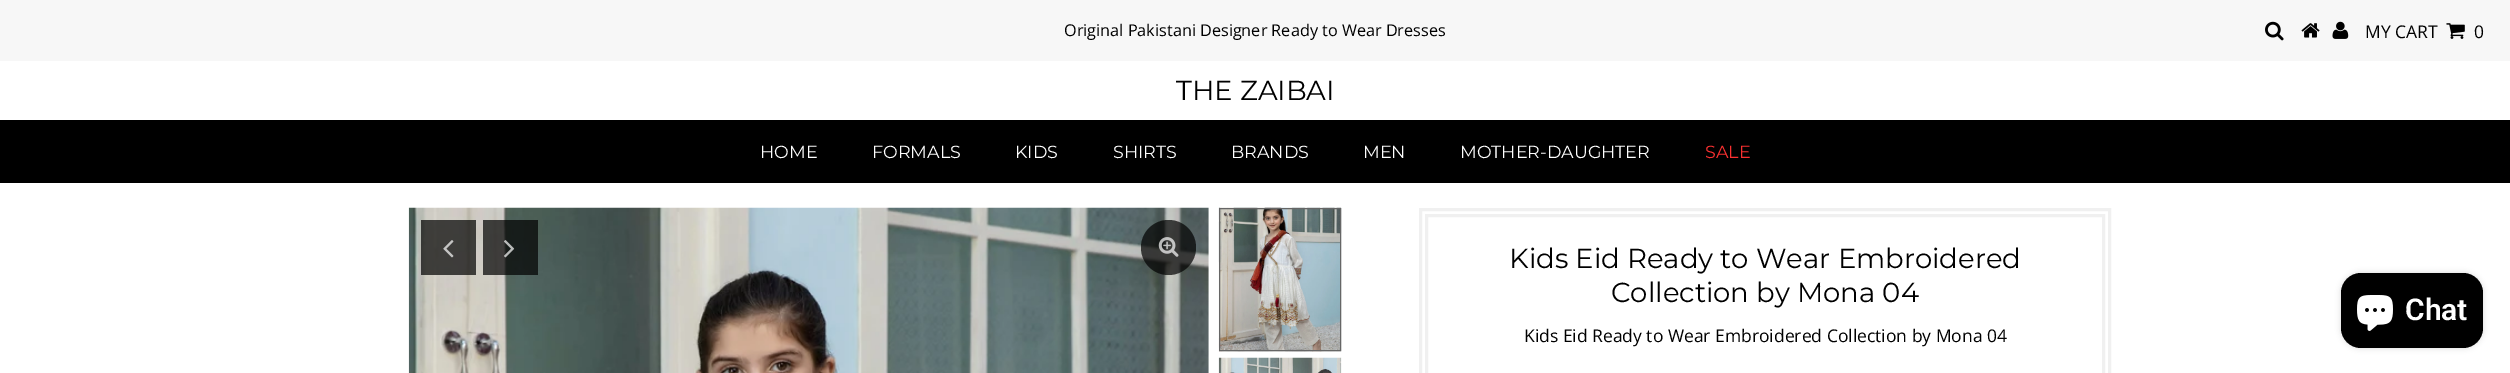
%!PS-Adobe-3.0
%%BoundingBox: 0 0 2510 373
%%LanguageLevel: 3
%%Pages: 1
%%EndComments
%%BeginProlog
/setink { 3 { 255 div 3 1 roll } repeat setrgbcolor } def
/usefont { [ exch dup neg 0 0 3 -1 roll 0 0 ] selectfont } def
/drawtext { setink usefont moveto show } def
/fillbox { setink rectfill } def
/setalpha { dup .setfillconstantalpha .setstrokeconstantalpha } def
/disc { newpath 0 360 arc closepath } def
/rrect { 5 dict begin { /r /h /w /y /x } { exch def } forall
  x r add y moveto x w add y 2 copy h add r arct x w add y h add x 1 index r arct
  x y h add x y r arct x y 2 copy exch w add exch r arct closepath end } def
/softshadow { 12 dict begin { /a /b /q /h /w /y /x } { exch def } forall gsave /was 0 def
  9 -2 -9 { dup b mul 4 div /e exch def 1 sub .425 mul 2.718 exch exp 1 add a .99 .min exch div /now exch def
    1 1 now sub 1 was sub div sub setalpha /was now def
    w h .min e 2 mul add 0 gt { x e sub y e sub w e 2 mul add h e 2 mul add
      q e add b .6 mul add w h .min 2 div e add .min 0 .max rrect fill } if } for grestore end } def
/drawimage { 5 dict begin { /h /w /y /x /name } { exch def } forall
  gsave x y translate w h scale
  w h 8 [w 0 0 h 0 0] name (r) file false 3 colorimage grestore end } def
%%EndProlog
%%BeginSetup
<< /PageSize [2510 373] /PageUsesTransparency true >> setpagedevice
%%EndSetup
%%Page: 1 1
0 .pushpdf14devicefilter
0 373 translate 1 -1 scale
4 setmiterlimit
0 0 2510 373 255 255 255 fillbox
0 0 2510 61 247 247 247 fillbox
(Original Pakistani Designer Ready to Wear Dresses) 1064 36 /OpenSans-Regular 16.25 0 0 0 drawtext
(assets/img1.rgb) 2265 21 19 20 drawimage
(assets/img2.rgb) 2301 23 19 15 drawimage
(assets/img3.rgb) 2332 21 17 18 drawimage
(MY CART) 2365 38 /OpenSans-Regular 17.5 0 0 0 drawtext
(assets/img4.rgb) 2446 23 19 16 drawimage
(0) 2474 38 /OpenSans-Regular 17.5 0 0 0 drawtext
(THE ZAIBAI) 1176 100 /Montserrat-Regular 27.5 0 0 0 drawtext
0 120 2510 63 0 0 0 fillbox
(HOME) 760 158 /Montserrat-Regular 17.5 255 255 255 drawtext
(FORMALS) 872 158 /Montserrat-Regular 17.5 255 255 255 drawtext
(KIDS) 1015 158 /Montserrat-Regular 17.5 255 255 255 drawtext
(SHIRTS) 1113 158 /Montserrat-Regular 17.5 255 255 255 drawtext
(BRANDS) 1231 158 /Montserrat-Regular 17.5 255 255 255 drawtext
(MEN) 1363 158 /Montserrat-Regular 17.5 255 255 255 drawtext
(MOTHER-DAUGHTER) 1460 158 /Montserrat-Regular 17.5 255 255 255 drawtext
(SALE) 1705 158 /Montserrat-Regular 17.5 250 48 48 drawtext
(assets/img5.rgb) 408 207 801 166 drawimage
0.7 setalpha
0 0 0 setink
1168.5 247.5 27.5 disc fill
1 setalpha
(assets/img6.rgb) 1158 237 21 20 drawimage
0.7 setalpha
421 220 55 55 0 0 0 fillbox
1 setalpha
(assets/img7.rgb) 443 240 11 18 drawimage
0.7 setalpha
483 220 55 55 0 0 0 fillbox
1 setalpha
(assets/img8.rgb) 504 240 11 18 drawimage
(assets/img9.rgb) 1218 207 124 145 drawimage
102 102 102 setink
1219.5 208.5 121 142 rectstroke
(assets/img10.rgb) 1218 357 124 16 drawimage
240 240 240 setink
3 setlinewidth
1420.5 209.5 689 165 rectstroke
1426.5 215.5 677 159 rectstroke
(Kids Eid Ready to Wear Embroidered) 1509 268 /Montserrat-Regular 27.5 0 0 0 drawtext
(Collection by Mona 04) 1611 302 /Montserrat-Regular 27.5 0 0 0 drawtext
(Kids Eid Ready to Wear Embroidered Collection by Mona 04) 1524 342 /OpenSans-Regular 17.5 0 0 0 drawtext
2341 273 142 75 20 3 0.15 softshadow
2341 273 142 75 20 rrect fill
(assets/img11.rgb) 2357 295 36 36 drawimage
(Chat) 2405 320 /Roboto-SemiBold 30 255 255 255 drawtext
.poppdf14devicefilter showpage
%%EOF
